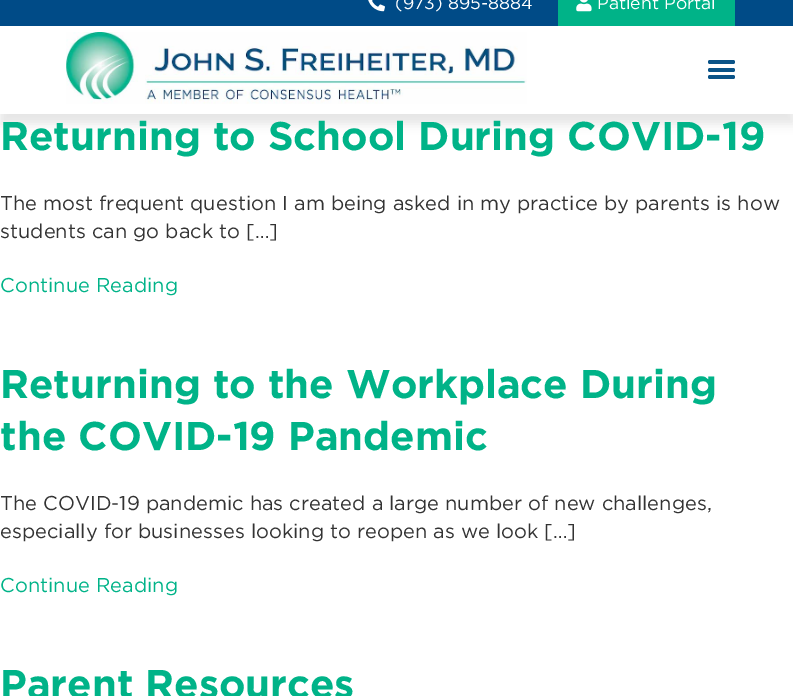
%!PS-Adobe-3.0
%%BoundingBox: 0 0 793 696
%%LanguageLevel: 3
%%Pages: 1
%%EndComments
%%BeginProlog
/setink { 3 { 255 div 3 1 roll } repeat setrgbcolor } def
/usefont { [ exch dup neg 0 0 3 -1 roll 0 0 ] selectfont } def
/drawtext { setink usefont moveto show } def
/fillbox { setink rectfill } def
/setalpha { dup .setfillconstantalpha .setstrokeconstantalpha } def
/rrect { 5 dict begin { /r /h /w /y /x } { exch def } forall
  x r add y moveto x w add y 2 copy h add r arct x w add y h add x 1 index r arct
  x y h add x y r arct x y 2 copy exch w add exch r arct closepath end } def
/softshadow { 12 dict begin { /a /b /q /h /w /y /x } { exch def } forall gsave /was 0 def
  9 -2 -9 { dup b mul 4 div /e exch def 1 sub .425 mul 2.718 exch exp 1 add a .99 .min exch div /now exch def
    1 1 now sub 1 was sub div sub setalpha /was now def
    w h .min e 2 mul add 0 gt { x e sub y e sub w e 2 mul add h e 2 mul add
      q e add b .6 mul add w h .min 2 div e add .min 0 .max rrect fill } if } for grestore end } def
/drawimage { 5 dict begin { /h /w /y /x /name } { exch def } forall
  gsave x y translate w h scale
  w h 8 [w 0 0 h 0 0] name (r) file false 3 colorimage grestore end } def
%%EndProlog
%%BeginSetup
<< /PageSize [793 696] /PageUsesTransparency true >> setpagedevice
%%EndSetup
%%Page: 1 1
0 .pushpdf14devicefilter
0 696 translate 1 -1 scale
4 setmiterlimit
0 0 793 696 255 255 255 fillbox
0 0 0 setink
0 -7 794 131 0 5 0.1 softshadow
0 0 793 26 0 75 135 fillbox
(assets/img1.rgb) 368 0 17 12 drawimage
(\(973\) 895-8884) 395 9 /Gotham-Regular 17.5 255 255 255 drawtext
558 0 177 26 0 179 136 fillbox
(assets/img2.rgb) 576 0 16 12 drawimage
(Patient Portal) 597 9 /Gotham-Regular 17.5 255 255 255 drawtext
0 26 793 88 255 255 255 fillbox
(assets/img3.rgb) 66 32 461 72 drawimage
11 84 136 setink
708 60 27 4 2 rrect fill
708 68 27 4 2 rrect fill
708 75 27 4 2 rrect fill
(Returning to School During COVID-19) 0 150 /Gotham-Bold 40 0 179 136 drawtext
(The most frequent question I am being asked in my practice by parents is how) 0 210 /Gotham-Regular 20 51 51 51 drawtext
(students can go back to […]) 0 238 /Gotham-Regular 20 51 51 51 drawtext
(Continue Reading) 0 292 /Gotham-Regular 20 0 179 136 drawtext
(Returning to the Workplace During) 0 398 /Gotham-Bold 40 0 179 136 drawtext
(the COVID-19 Pandemic) 0 450 /Gotham-Bold 40 0 179 136 drawtext
(The COVID-19 pandemic has created a large number of new challenges,) 0 510 /Gotham-Regular 20 51 51 51 drawtext
(especially for businesses looking to reopen as we look […]) 0 538 /Gotham-Regular 20 51 51 51 drawtext
(Continue Reading) 0 592 /Gotham-Regular 20 0 179 136 drawtext
(Parent Resources) 0 698 /Gotham-Bold 40 0 179 136 drawtext
.poppdf14devicefilter showpage
%%EOF
